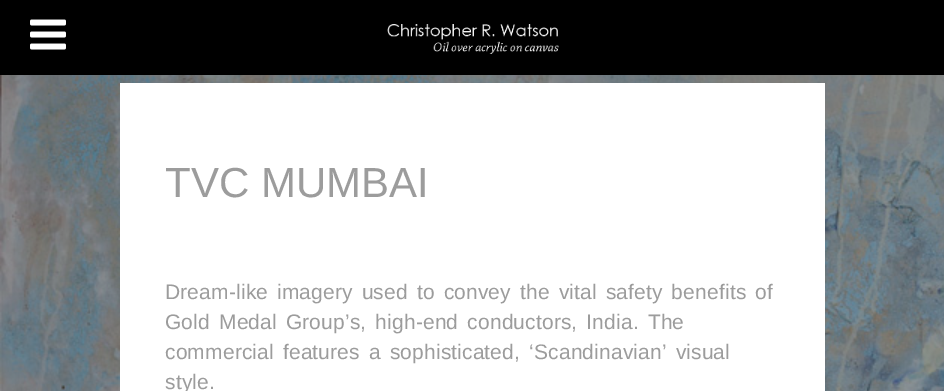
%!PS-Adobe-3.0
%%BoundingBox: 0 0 944 391
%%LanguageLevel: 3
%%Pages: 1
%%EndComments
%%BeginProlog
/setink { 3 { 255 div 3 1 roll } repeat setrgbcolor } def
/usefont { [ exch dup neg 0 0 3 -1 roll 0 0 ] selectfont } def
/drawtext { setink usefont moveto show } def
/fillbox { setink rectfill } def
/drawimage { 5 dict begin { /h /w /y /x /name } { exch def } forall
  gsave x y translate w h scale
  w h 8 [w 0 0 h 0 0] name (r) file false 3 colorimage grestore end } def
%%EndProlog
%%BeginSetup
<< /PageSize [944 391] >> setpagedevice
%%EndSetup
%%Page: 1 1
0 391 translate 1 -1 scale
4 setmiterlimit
0 0 944 391 255 255 255 fillbox
(assets/img1.rgb) 0 75 944 316 drawimage
0 0 944 75 0 0 0 fillbox
(assets/img2.rgb) 30 19 36 31 drawimage
(assets/img3.rgb) 387 24 172 30 drawimage
120 83 705 308 255 255 255 fillbox
(TVC MUMBAI) 165 197 /LiberationSans-Regular 42 156 156 156 drawtext
/LiberationSans-Regular 21 usefont
165 299 moveto 3 0 32 0.15 0 (Dream-like imagery used to convey the vital safety benefits of) awidthshow
165 329 moveto 3 0 32 0.15 0 (Gold Medal Group’s, high-end conductors, India. The) awidthshow
165 359 moveto 3 0 32 0.15 0 (commercial features a sophisticated, ‘Scandinavian’ visual) awidthshow
165 389 moveto 0.15 0 (style.) ashow
showpage
%%EOF
